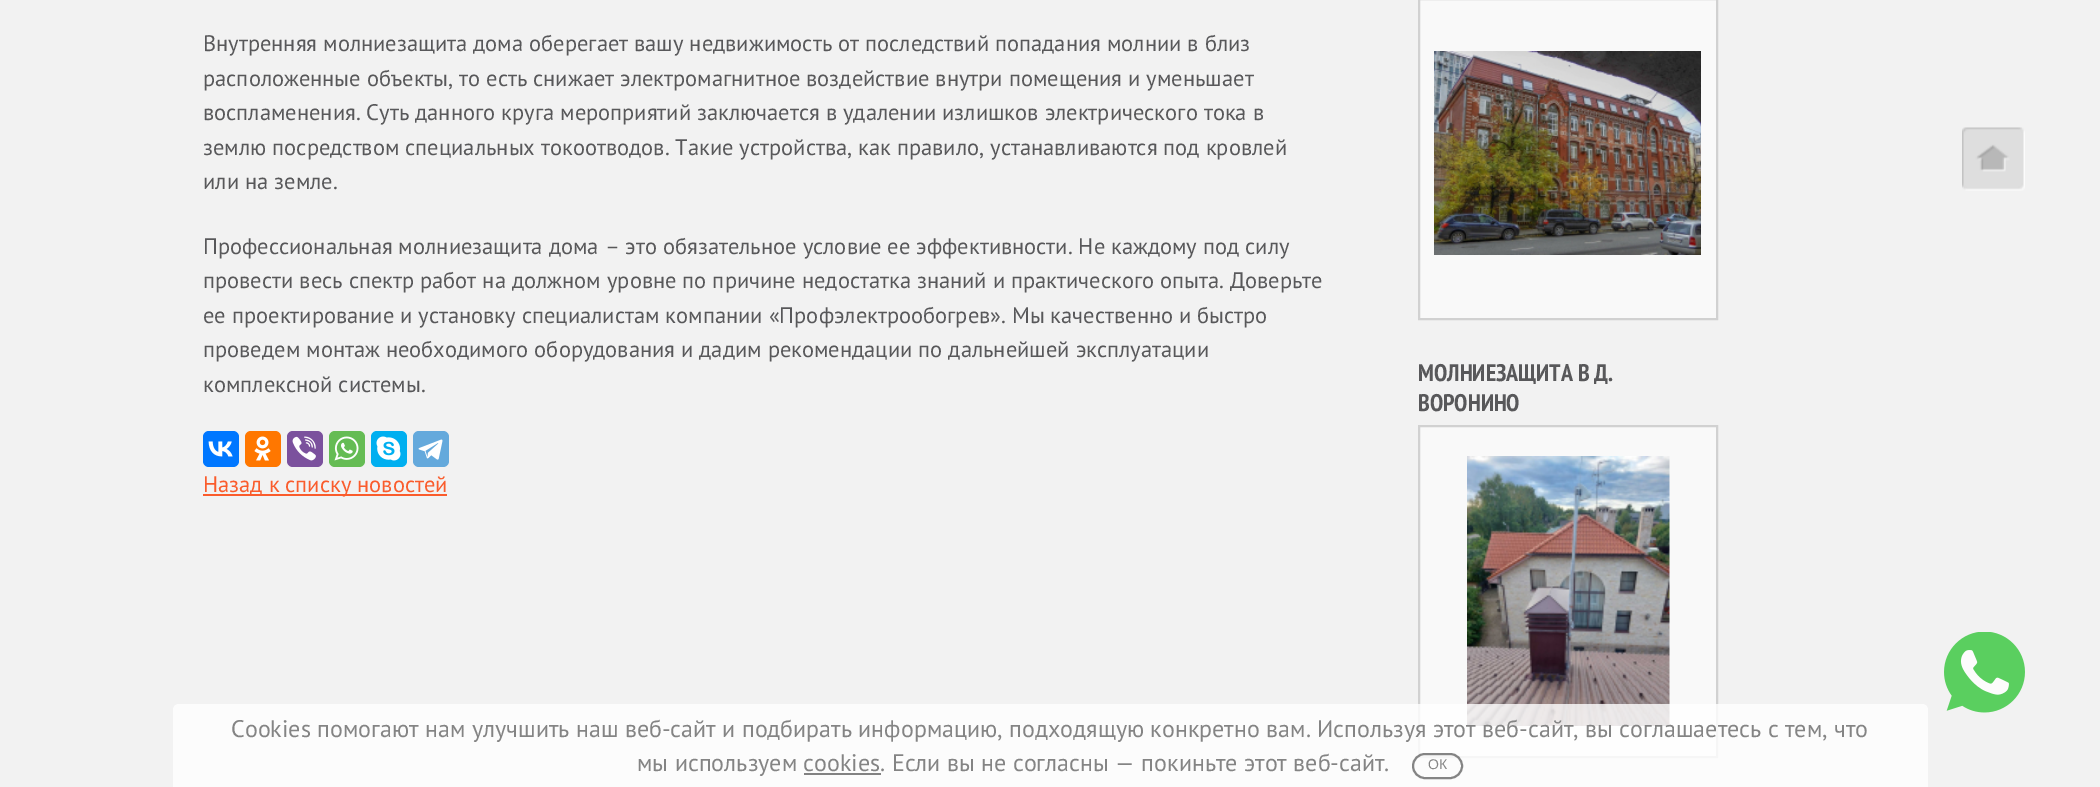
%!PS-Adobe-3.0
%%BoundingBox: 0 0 2100 787
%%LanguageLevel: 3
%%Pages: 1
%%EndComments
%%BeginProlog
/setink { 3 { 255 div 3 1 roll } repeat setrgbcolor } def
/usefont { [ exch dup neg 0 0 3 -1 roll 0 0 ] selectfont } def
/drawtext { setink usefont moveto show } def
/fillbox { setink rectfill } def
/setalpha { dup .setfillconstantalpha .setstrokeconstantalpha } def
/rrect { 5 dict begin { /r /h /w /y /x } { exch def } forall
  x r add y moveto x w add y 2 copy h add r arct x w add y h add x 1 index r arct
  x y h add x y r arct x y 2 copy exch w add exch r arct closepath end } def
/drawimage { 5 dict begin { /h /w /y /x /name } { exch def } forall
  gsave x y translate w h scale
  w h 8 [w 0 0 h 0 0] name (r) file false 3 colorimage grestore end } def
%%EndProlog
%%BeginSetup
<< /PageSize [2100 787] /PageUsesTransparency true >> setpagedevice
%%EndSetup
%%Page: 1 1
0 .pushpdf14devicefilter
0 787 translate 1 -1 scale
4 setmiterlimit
0 0 2100 787 242 242 242 fillbox
(Внутренняя молниезащита дома оберегает вашу недвижимость от последствий попадания молнии в близ) 203 51 /PTSans-Regular 22.5 88 88 90 drawtext
(расположенные объекты, то есть снижает электромагнитное воздействие внутри помещения и уменьшает) 203 86 /PTSans-Regular 22.5 88 88 90 drawtext
(воспламенения. Суть данного круга мероприятий заключается в удалении излишков электрического тока в) 203 120 /PTSans-Regular 22.5 88 88 90 drawtext
(землю посредством специальных токоотводов. Такие устройства, как правило, устанавливаются под кровлей) 203 155 /PTSans-Regular 22.5 88 88 90 drawtext
(или на земле.) 203 189 /PTSans-Regular 22.5 88 88 90 drawtext
(Профессиональная молниезащита дома – это обязательное условие ее эффективности. Не каждому под силу) 203 254 /PTSans-Regular 22.5 88 88 90 drawtext
(провести весь спектр работ на должном уровне по причине недостатка знаний и практического опыта. Доверьте) 203 288 /PTSans-Regular 22.5 88 88 90 drawtext
(ее проектирование и установку специалистам компании «Профэлектрообогрев». Мы качественно и быстро) 203 323 /PTSans-Regular 22.5 88 88 90 drawtext
(проведем монтаж необходимого оборудования и дадим рекомендации по дальнейшей эксплуатации) 203 357 /PTSans-Regular 22.5 88 88 90 drawtext
(комплексной системы.) 203 392 /PTSans-Regular 22.5 88 88 90 drawtext
0 119 255 setink
203 431 36 36 6 rrect fill
(assets/img1.rgb) 208 441 25 16 drawimage
255 119 0 setink
245 431 36 36 6 rrect fill
(assets/img2.rgb) 254 436 17 25 drawimage
123 81 157 setink
287 431 36 36 6 rrect fill
(assets/img3.rgb) 292 436 24 25 drawimage
101 188 84 setink
329 431 36 36 6 rrect fill
(assets/img4.rgb) 334 436 25 25 drawimage
0 175 240 setink
371 431 36 36 6 rrect fill
(assets/img5.rgb) 376 436 25 25 drawimage
100 169 220 setink
413 431 36 36 6 rrect fill
(assets/img6.rgb) 418 439 25 21 drawimage
203 494 244 2 250 92 44 fillbox
(Назад к списку новостей) 203 492 /PTSans-Regular 22.5 250 92 44 drawtext
249 249 249 setink
1419 -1 moveto 1717 -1 lineto 1717 319 lineto 1419 319 lineto closepath gsave fill grestore
209 209 209 setink
2 setlinewidth
stroke
(assets/img7.rgb) 1434 51 267 204 drawimage
(МОЛНИЕЗАЩИТА В Д.) 1418 381 /PTSansNarrow-Bold 24 88 88 90 drawtext
(ВОРОНИНО) 1418 411 /PTSansNarrow-Bold 24 88 88 90 drawtext
249 249 249 setink
1419 426 moveto 1717 426 lineto 1717 757 lineto 1419 757 lineto closepath gsave fill grestore
209 209 209 setink
stroke
(assets/img8.rgb) 1467 456 203 270 drawimage
(assets/img9.rgb) 1962 127 63 64 drawimage
(assets/img10.rgb) 1944 632 81 81 drawimage
0.8 setalpha
255 255 255 setink
179 704 moveto 1922 704 lineto 1925.5 704 1928 706.5 1928 710 curveto 1928 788 lineto 173 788 lineto 173 710 lineto 173 706.5 175.5 704 179 704 curveto closepath fill
1 setalpha
(Cookies помогают нам улучшить наш веб-сайт и подбирать информацию, подходящую конкретно вам. Используя этот веб-сайт, вы соглашаетесь с тем, что) 231 737 /PTSans-Regular 24 132 132 132 drawtext
(мы используем cookies. Если вы не согласны — покиньте этот веб-сайт.) 637 771 /PTSans-Regular 24 132 132 132 drawtext
0.8 setalpha
102 102 102 setink
1413 754 49 24 12 rrect stroke
1 setalpha
(ОК) 1428 769 /LiberationSans-Regular 14 132 132 132 drawtext
804 773 77 2 130 130 130 fillbox
.poppdf14devicefilter showpage
%%EOF
